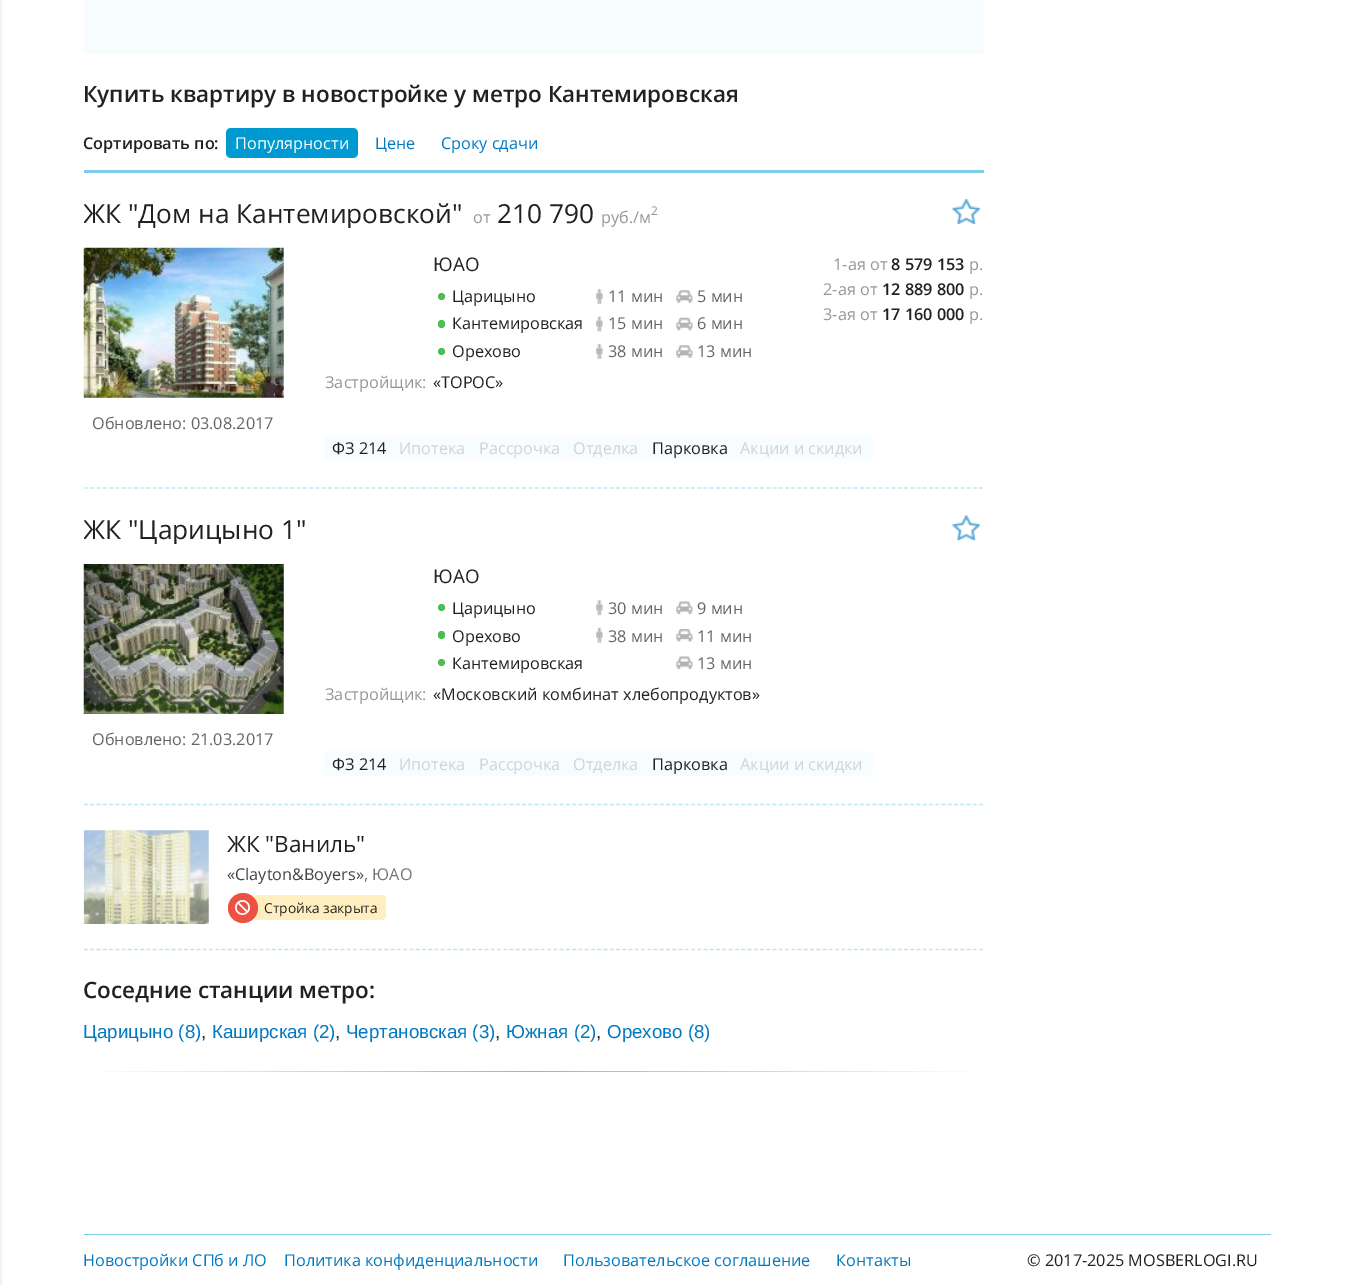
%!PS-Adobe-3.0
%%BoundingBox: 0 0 1353 1285
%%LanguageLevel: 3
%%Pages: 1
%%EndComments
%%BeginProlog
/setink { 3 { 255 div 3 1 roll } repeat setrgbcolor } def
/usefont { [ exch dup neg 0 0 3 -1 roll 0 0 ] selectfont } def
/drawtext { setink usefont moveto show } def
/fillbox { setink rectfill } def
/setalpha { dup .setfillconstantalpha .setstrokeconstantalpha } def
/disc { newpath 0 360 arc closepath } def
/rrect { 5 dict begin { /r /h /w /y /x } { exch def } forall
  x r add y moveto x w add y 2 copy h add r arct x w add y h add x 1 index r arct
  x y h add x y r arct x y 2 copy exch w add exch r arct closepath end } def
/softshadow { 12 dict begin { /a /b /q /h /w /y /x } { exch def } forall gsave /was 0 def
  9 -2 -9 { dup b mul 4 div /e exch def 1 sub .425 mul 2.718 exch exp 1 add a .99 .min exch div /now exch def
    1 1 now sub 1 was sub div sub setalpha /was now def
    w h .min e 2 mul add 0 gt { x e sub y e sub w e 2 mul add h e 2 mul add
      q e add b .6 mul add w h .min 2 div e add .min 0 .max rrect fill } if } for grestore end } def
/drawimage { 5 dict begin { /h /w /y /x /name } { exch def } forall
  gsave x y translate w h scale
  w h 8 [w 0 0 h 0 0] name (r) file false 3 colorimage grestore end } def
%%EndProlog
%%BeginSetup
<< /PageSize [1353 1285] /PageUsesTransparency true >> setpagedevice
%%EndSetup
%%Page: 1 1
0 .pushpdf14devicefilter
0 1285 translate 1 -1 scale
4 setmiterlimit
0 0 1353 1285 255 255 255 fillbox
0 0 0 setink
-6 1 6 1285 0 2 0.15 softshadow
84 0 900 54 247 252 254 fillbox
(Купить квартиру в новостройке у метро Кантемировская) 83 102 /OpenSans-SemiBold 22.5 36 31 32 drawtext
84 170 900 3 127 204 232 fillbox
(Сортировать по:) 83 149 /OpenSans-SemiBold 16.25 36 31 32 drawtext
0 153 210 setink
226 128 132 30 5 rrect fill
(Популярности) 235 149 /OpenSans-Regular 16.25 255 255 255 drawtext
(Цене) 375 149 /OpenSans-Regular 16.25 0 120 194 drawtext
(Сроку сдачи) 441 149 /OpenSans-Regular 16.25 0 120 194 drawtext
191 230 244 setink
1.2 setlinewidth
[3.75 2.51] 0 setdash
84 949.5 moveto 984 949.5 lineto stroke
(assets/img1.rgb) 952 199 28 25 drawimage
gsave
84 198 379 30 rectclip
(ЖК "Дом на Кантемировской") 83 223 /OpenSans-Regular 26.25 36 31 32 drawtext
grestore
(от) 473 223 /OpenSans-Regular 16.25 147 149 152 drawtext
(210 790) 497 223 /OpenSans-Regular 26.25 36 31 32 drawtext
(руб./м) 601 223 /OpenSans-Regular 16.25 147 149 152 drawtext
(2) 651 215 /OpenSans-Regular 12 147 149 152 drawtext
(assets/img2.rgb) 83 247 201 151 drawimage
(ЮАО) 433 271 /OpenSans-Regular 18.75 36 31 32 drawtext
(1-ая от) 833 270 /OpenSans-Regular 16.25 147 149 152 drawtext
(8 579 153) 891 270 /OpenSans-SemiBold 16.25 36 31 32 drawtext
(р.) 969 270 /OpenSans-Regular 16.25 147 149 152 drawtext
(2-ая от) 823 295 /OpenSans-Regular 16.25 147 149 152 drawtext
(12 889 800) 882 295 /OpenSans-SemiBold 16.25 36 31 32 drawtext
(р.) 969 295 /OpenSans-Regular 16.25 147 149 152 drawtext
(3-ая от) 823 320 /OpenSans-Regular 16.25 147 149 152 drawtext
(17 160 000) 882 320 /OpenSans-SemiBold 16.25 36 31 32 drawtext
(р.) 969 320 /OpenSans-Regular 16.25 147 149 152 drawtext
77 190 82 setink
441.5 296.5 3.5 disc fill
(Царицыно) 452 302 /OpenSans-Regular 16.25 36 31 32 drawtext
(assets/img3.rgb) 596 289 7 15 drawimage
(11 мин) 608 302 /OpenSans-Regular 16.25 99 100 102 drawtext
(assets/img4.rgb) 676 290 17 13 drawimage
(5 мин) 697 302 /OpenSans-Regular 16.25 99 100 102 drawtext
77 190 82 setink
438 320 7 8 3.5 rrect fill
(Кантемировская) 452 329 /OpenSans-Regular 16.25 36 31 32 drawtext
(assets/img5.rgb) 596 316 7 16 drawimage
(15 мин) 608 329 /OpenSans-Regular 16.25 99 100 102 drawtext
(assets/img6.rgb) 676 317 17 14 drawimage
(6 мин) 697 329 /OpenSans-Regular 16.25 99 100 102 drawtext
77 190 82 setink
441.5 351.5 3.5 disc fill
(Орехово) 452 357 /OpenSans-Regular 16.25 36 31 32 drawtext
(assets/img3.rgb) 596 344 7 15 drawimage
(38 мин) 608 357 /OpenSans-Regular 16.25 99 100 102 drawtext
(assets/img7.rgb) 676 345 17 13 drawimage
(13 мин) 697 357 /OpenSans-Regular 16.25 99 100 102 drawtext
(Застройщик:) 325 388 /OpenSans-Regular 16.25 147 149 152 drawtext
(«ТОРОС») 433 388 /OpenSans-Regular 16.25 36 31 32 drawtext
(Обновлено: 03.08.2017) 92 429 /OpenSans-Regular 16.25 99 100 102 drawtext
247 252 254 setink
324 435 549 25 5 rrect fill
(ФЗ 214) 332 454 /OpenSans-Regular 16.25 36 31 32 drawtext
(Ипотека) 399 454 /OpenSans-Regular 16.25 209 211 212 drawtext
(Рассрочка) 479 454 /OpenSans-Regular 16.25 209 211 212 drawtext
(Отделка) 573 454 /OpenSans-Regular 16.25 209 211 212 drawtext
(Парковка) 652 454 /OpenSans-Regular 16.25 36 31 32 drawtext
(Акции и скидки) 740 454 /OpenSans-Regular 16.25 209 211 212 drawtext
191 230 244 setink
84 488 moveto 984 488 lineto stroke
gsave
84 514 222 30 rectclip
(ЖК "Царицыно 1") 83 539 /OpenSans-Regular 26.25 36 31 32 drawtext
grestore
(assets/img8.rgb) 83 564 201 150 drawimage
(ЮАО) 433 583 /OpenSans-Regular 18.75 36 31 32 drawtext
77 190 82 setink
441.5 607.5 3.5 disc fill
(Царицыно) 452 614 /OpenSans-Regular 16.25 36 31 32 drawtext
(assets/img9.rgb) 596 600 7 16 drawimage
(30 мин) 608 614 /OpenSans-Regular 16.25 99 100 102 drawtext
(assets/img10.rgb) 676 601 17 13 drawimage
(9 мин) 697 614 /OpenSans-Regular 16.25 99 100 102 drawtext
77 190 82 setink
438 631 7 8 3.5 rrect fill
(Орехово) 452 642 /OpenSans-Regular 16.25 36 31 32 drawtext
(assets/img11.rgb) 596 627 7 16 drawimage
(38 мин) 608 642 /OpenSans-Regular 16.25 99 100 102 drawtext
(assets/img12.rgb) 676 629 17 13 drawimage
(11 мин) 697 642 /OpenSans-Regular 16.25 99 100 102 drawtext
77 190 82 setink
441.5 662.5 3.5 disc fill
(Кантемировская) 452 669 /OpenSans-Regular 16.25 36 31 32 drawtext
(assets/img10.rgb) 676 656 17 13 drawimage
(13 мин) 697 669 /OpenSans-Regular 16.25 99 100 102 drawtext
(Застройщик:) 325 700 /OpenSans-Regular 16.25 147 149 152 drawtext
(«Московский комбинат хлебопродуктов») 433 700 /OpenSans-Regular 16.25 36 31 32 drawtext
(Обновлено: 21.03.2017) 92 745 /OpenSans-Regular 16.25 99 100 102 drawtext
247 252 254 setink
324 751 549 25 5 rrect fill
(ФЗ 214) 332 770 /OpenSans-Regular 16.25 36 31 32 drawtext
(Ипотека) 399 770 /OpenSans-Regular 16.25 209 211 212 drawtext
(Рассрочка) 479 770 /OpenSans-Regular 16.25 209 211 212 drawtext
(Отделка) 573 770 /OpenSans-Regular 16.25 209 211 212 drawtext
(Парковка) 652 770 /OpenSans-Regular 16.25 36 31 32 drawtext
(Акции и скидки) 740 770 /OpenSans-Regular 16.25 209 211 212 drawtext
(assets/img13.rgb) 952 515 28 26 drawimage
191 230 244 setink
84 804.5 moveto 984 804.5 lineto stroke
(assets/img14.rgb) 83 830 126 94 drawimage
(ЖК "Ваниль") 227 852 /OpenSans-Regular 22.5 36 31 32 drawtext
(«Clayton&Boyers») 227 880 /OpenSans-Regular 16.25 66 66 66 drawtext
(, ЮАО) 364 880 /OpenSans-Regular 16.25 117 117 117 drawtext
255 239 192 setink
253 895 133 25 4 rrect fill
237 81 68 setink
243 908 15 disc fill
(assets/img15.rgb) 235 900 15 15 drawimage
(Стройка закрыта) 264 913 /OpenSans-Regular 13.75 36 31 32 drawtext
(Соседние станции метро:) 83 998 /OpenSans-SemiBold 22.5 36 31 32 drawtext
(Царицыно \(8\)) 83 1038 /LiberationSans-Regular 18.75 0 120 194 drawtext
(,) 201 1038 /LiberationSans-Regular 18.75 36 31 32 drawtext
(Каширская \(2\)) 212 1038 /LiberationSans-Regular 18.75 0 120 194 drawtext
(,) 335 1038 /LiberationSans-Regular 18.75 36 31 32 drawtext
(Чертановская \(3\)) 346 1038 /LiberationSans-Regular 18.75 0 120 194 drawtext
(,) 495 1038 /LiberationSans-Regular 18.75 36 31 32 drawtext
(Южная \(2\)) 506 1038 /LiberationSans-Regular 18.75 0 120 194 drawtext
(,) 596 1038 /LiberationSans-Regular 18.75 36 31 32 drawtext
(Орехово \(8\)) 607 1038 /LiberationSans-Regular 18.75 0 120 194 drawtext
gsave 93 1071 moveto 975 1071 lineto 975 1072 lineto 93 1072 lineto closepath clip newpath
<< /ShadingType 2 /ColorSpace /DeviceRGB /Coords [84 1072 984 1072] /Extend [true true] /Function << /FunctionType 3 /Domain [0 1] /Functions [<< /FunctionType 2 /Domain [0 1] /C0 [1 1 1] /C1 [0.502 0.737 0.882] /N 1 >> << /FunctionType 2 /Domain [0 1] /C0 [0.502 0.737 0.882] /C1 [1 1 1] /N 1 >>] /Bounds [0.5] /Encode [0 1 0 1] >> >> shfill grestore
84 1234 1187 1 127 204 232 fillbox
(Новостройки СПб и ЛО) 83 1266 /OpenSans-Regular 16.25 0 120 194 drawtext
(Политика конфиденциальности) 284 1266 /OpenSans-Regular 16.25 0 120 194 drawtext
(Пользовательское соглашение) 563 1266 /OpenSans-Regular 16.25 0 120 194 drawtext
(Контакты) 836 1266 /OpenSans-Regular 16.25 0 120 194 drawtext
(© 2017-2025 MOSBERLOGI.RU) 1027 1266 /OpenSans-Regular 16.25 36 31 32 drawtext
.poppdf14devicefilter showpage
%%EOF
